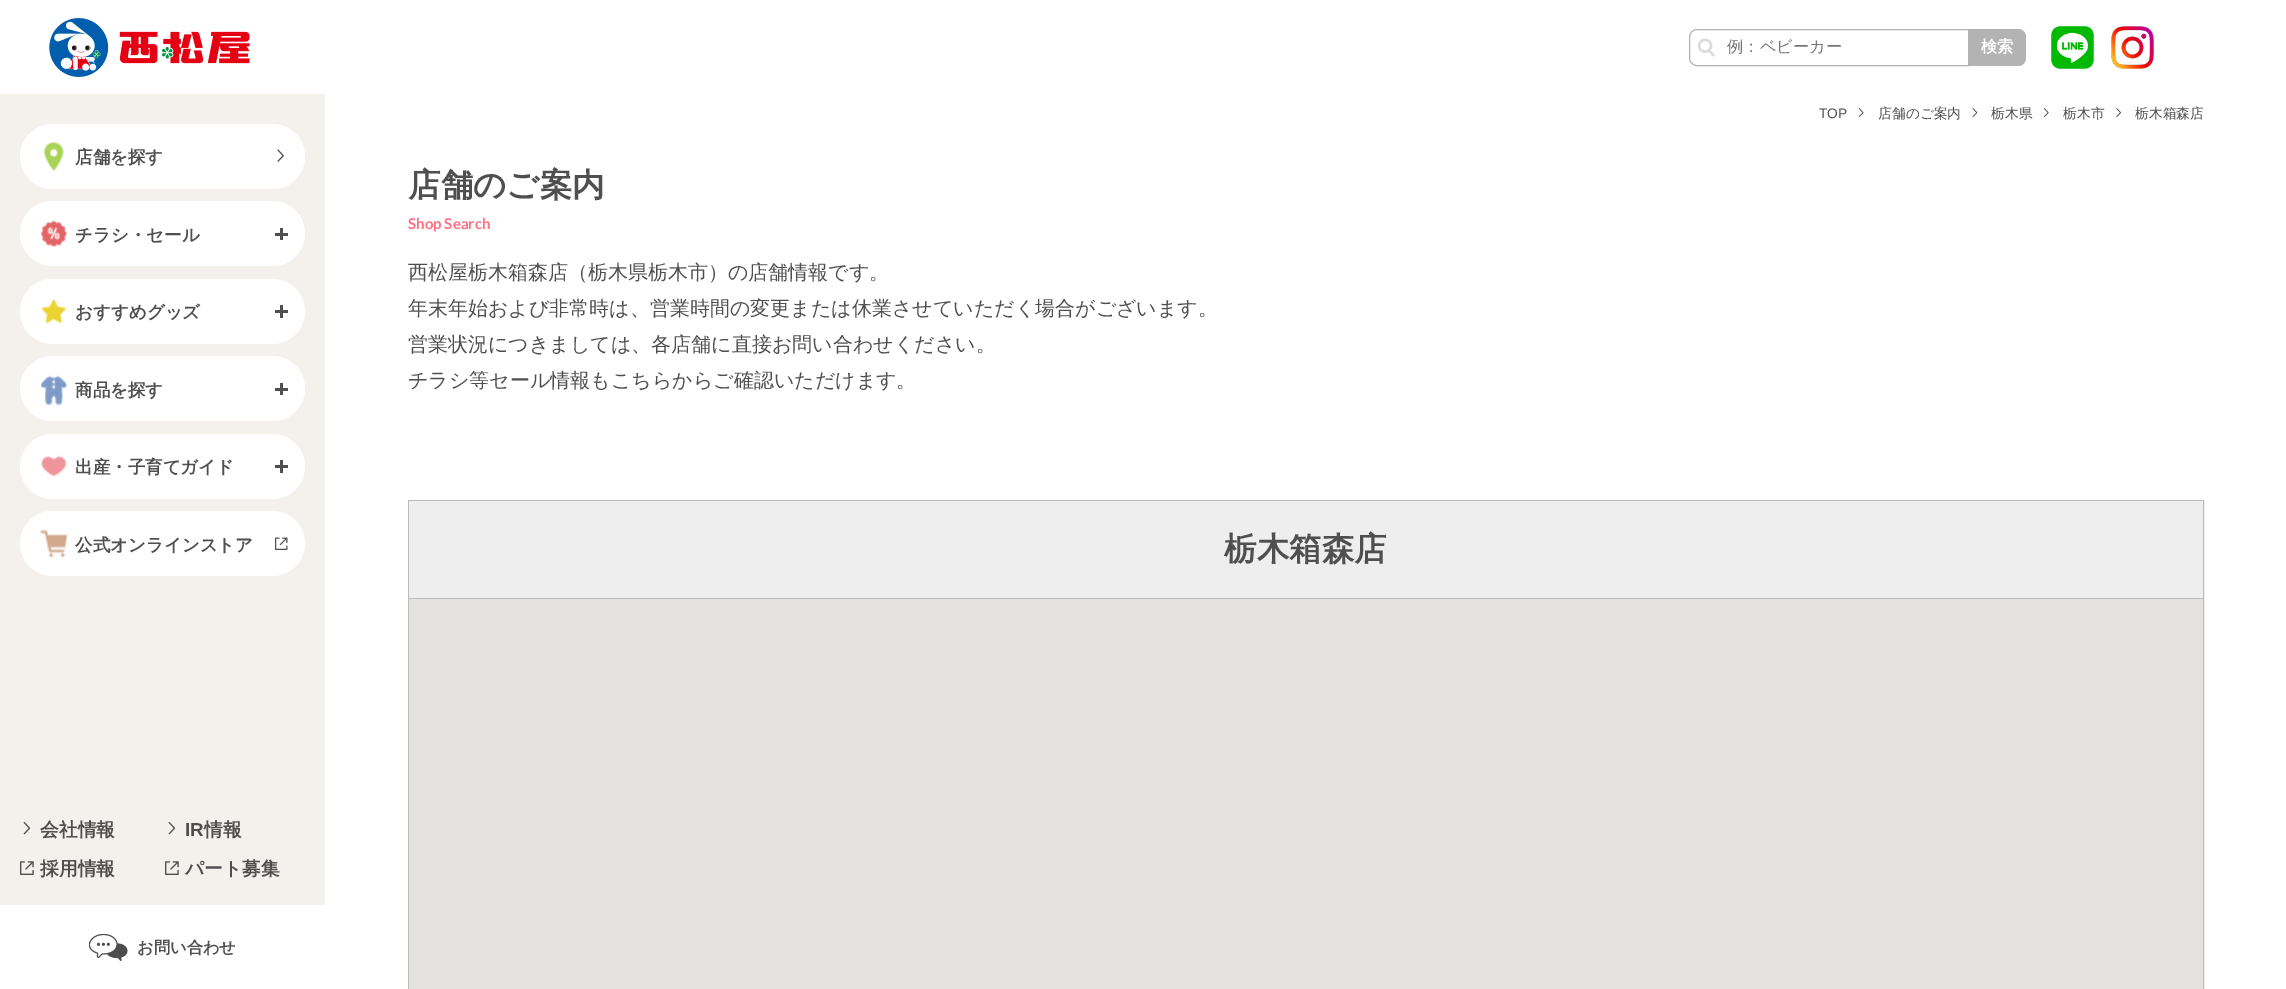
%!PS-Adobe-3.0
%%BoundingBox: 0 0 2286 989
%%LanguageLevel: 3
%%Pages: 1
%%EndComments
%%BeginProlog
/setink { 3 { 255 div 3 1 roll } repeat setrgbcolor } def
/usefont { [ exch dup neg 0 0 3 -1 roll 0 0 ] selectfont } def
/drawtext { setink usefont moveto show } def
/fillbox { setink rectfill } def
/rrect { 5 dict begin { /r /h /w /y /x } { exch def } forall
  x r add y moveto x w add y 2 copy h add r arct x w add y h add x 1 index r arct
  x y h add x y r arct x y 2 copy exch w add exch r arct closepath end } def
/drawimage { 5 dict begin { /h /w /y /x /name } { exch def } forall
  gsave x y translate w h scale
  w h 8 [w 0 0 h 0 0] name (r) file false 3 colorimage grestore end } def
%%EndProlog
%%BeginSetup
<< /PageSize [2286 989] >> setpagedevice
%%EndSetup
%%Page: 1 1
0 989 translate 1 -1 scale
4 setmiterlimit
0 0 2286 989 255 255 255 fillbox
(assets/img1.rgb) 49 18 201 59 drawimage
179 179 180 setink
1697 29.5 moveto 1968.5 29.5 lineto 1968.5 65.5 lineto 1697 65.5 lineto 1693 65.5 1689.5 62 1689.5 58 curveto 1689.5 37 lineto 1689.5 33 1693 29.5 1697 29.5 curveto closepath stroke
(assets/img2.rgb) 1697 38 18 19 drawimage
(例：ベビーカー) 1727 52 /WenQuanYiZenHei-Medium 16.25 117 117 117 drawtext
179 179 180 setink
1969 29 moveto 2018 29 lineto 2022.5 29 2026 32.5 2026 37 curveto 2026 58 lineto 2026 62.5 2022.5 66 2018 66 curveto 1969 66 lineto closepath fill
(検索) 1981 52 /WenQuanYiZenHei-Bold 16.25 255 255 255 drawtext
(assets/img3.rgb) 2051 26 43 43 drawimage
(assets/img4.rgb) 2111 26 43 43 drawimage
0 94 325 811 244 240 236 fillbox
255 255 255 setink
20 124 285 65 32.5 rrect fill
(assets/img5.rgb) 43 141 21 30 drawimage
(店舗を探す) 75 163 /WenQuanYiZenHei-Bold 17.5 79 79 79 drawtext
(assets/img6.rgb) 277 149 7 13 drawimage
255 255 255 setink
20 201 285 65 32.5 rrect fill
(assets/img7.rgb) 41 220 27 27 drawimage
(チラシ・セール) 75 241 /WenQuanYiZenHei-Bold 17.5 79 79 79 drawtext
280 228 3 12 79 79 79 fillbox
275 233 13 3 79 79 79 fillbox
255 255 255 setink
20 279 285 65 32.5 rrect fill
(assets/img8.rgb) 41 299 26 25 drawimage
(おすすめグッズ) 75 318 /WenQuanYiZenHei-Bold 17.5 79 79 79 drawtext
280 305 3 13 79 79 79 fillbox
275 310 13 3 79 79 79 fillbox
255 255 255 setink
20 356 285 65 32.5 rrect fill
(assets/img9.rgb) 41 375 27 31 drawimage
(商品を探す) 75 396 /WenQuanYiZenHei-Bold 17.5 79 79 79 drawtext
280 383 3 12 79 79 79 fillbox
275 388 13 3 79 79 79 fillbox
255 255 255 setink
20 434 285 65 32.5 rrect fill
(assets/img10.rgb) 41 455 26 22 drawimage
(出産・子育てガイド) 75 473 /WenQuanYiZenHei-Bold 17.5 79 79 79 drawtext
280 460 3 13 79 79 79 fillbox
275 465 13 3 79 79 79 fillbox
255 255 255 setink
20 511 285 65 32.5 rrect fill
(assets/img11.rgb) 40 529 28 29 drawimage
(公式オンラインストア) 75 551 /WenQuanYiZenHei-Bold 17.5 79 79 79 drawtext
(assets/img12.rgb) 275 537 13 13 drawimage
(assets/img13.rgb) 23 822 8 13 drawimage
(会社情報) 40 836 /WenQuanYiZenHei-Bold 18.75 79 79 79 drawtext
(assets/img13.rgb) 168 822 8 13 drawimage
(IR) 185 836 /LiberationSans-Bold 18.75 79 79 79 drawtext
(情報) 204 836 /WenQuanYiZenHei-Bold 18.75 79 79 79 drawtext
(assets/img14.rgb) 20 861 14 14 drawimage
(採用情報) 40 875 /WenQuanYiZenHei-Bold 18.75 79 79 79 drawtext
(assets/img14.rgb) 165 861 14 14 drawimage
(パート募集) 185 875 /WenQuanYiZenHei-Bold 18.75 79 79 79 drawtext
(assets/img15.rgb) 89 934 39 27 drawimage
(お問い合わせ) 137 953 /WenQuanYiZenHei-Bold 16.25 79 79 79 drawtext
(TOP) 1819 118 /LiberationSans-Regular 13.75 79 79 79 drawtext
(assets/img16.rgb) 1858 108 6 9 drawimage
(店舗のご案内) 1878 118 /WenQuanYiZenHei-Medium 13.75 79 79 79 drawtext
(assets/img17.rgb) 1972 108 6 9 drawimage
(栃木県) 1991 118 /WenQuanYiZenHei-Medium 13.75 79 79 79 drawtext
(assets/img18.rgb) 2043 108 6 9 drawimage
(栃木市) 2063 118 /WenQuanYiZenHei-Medium 13.75 79 79 79 drawtext
(assets/img19.rgb) 2116 108 5 9 drawimage
(栃木箱森店) 2135 118 /WenQuanYiZenHei-Medium 13.75 79 79 79 drawtext
(店舗のご案内) 408 196 /WenQuanYiZenHei-Bold 32.5 79 79 79 drawtext
(Shop Search) 408 229 /Lato-Bold 15 255 112 132 drawtext
(西松屋栃木箱森店（栃木県栃木市）の店舗情報です。) 408 279 /WenQuanYiZenHei-Medium 20 79 79 79 drawtext
(年末年始および非常時は、営業時間の変更または休業させていただく場合がございます。) 408 315 /WenQuanYiZenHei-Medium 20 79 79 79 drawtext
(営業状況につきましては、各店舗に直接お問い合わせください。) 408 351 /WenQuanYiZenHei-Medium 20 79 79 79 drawtext
(チラシ等セール情報もこちらからご確認いただけます。) 408 387 /WenQuanYiZenHei-Medium 20 79 79 79 drawtext
187 187 187 setink
408.5 500.5 1795 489 rectstroke
409 501 1794 97 238 238 238 fillbox
409 598 1794 1 187 187 187 fillbox
(栃木箱森店) 1224 560 /WenQuanYiZenHei-Bold 32.5 79 79 79 drawtext
409 599 1794 390 229 227 223 fillbox
showpage
%%EOF
